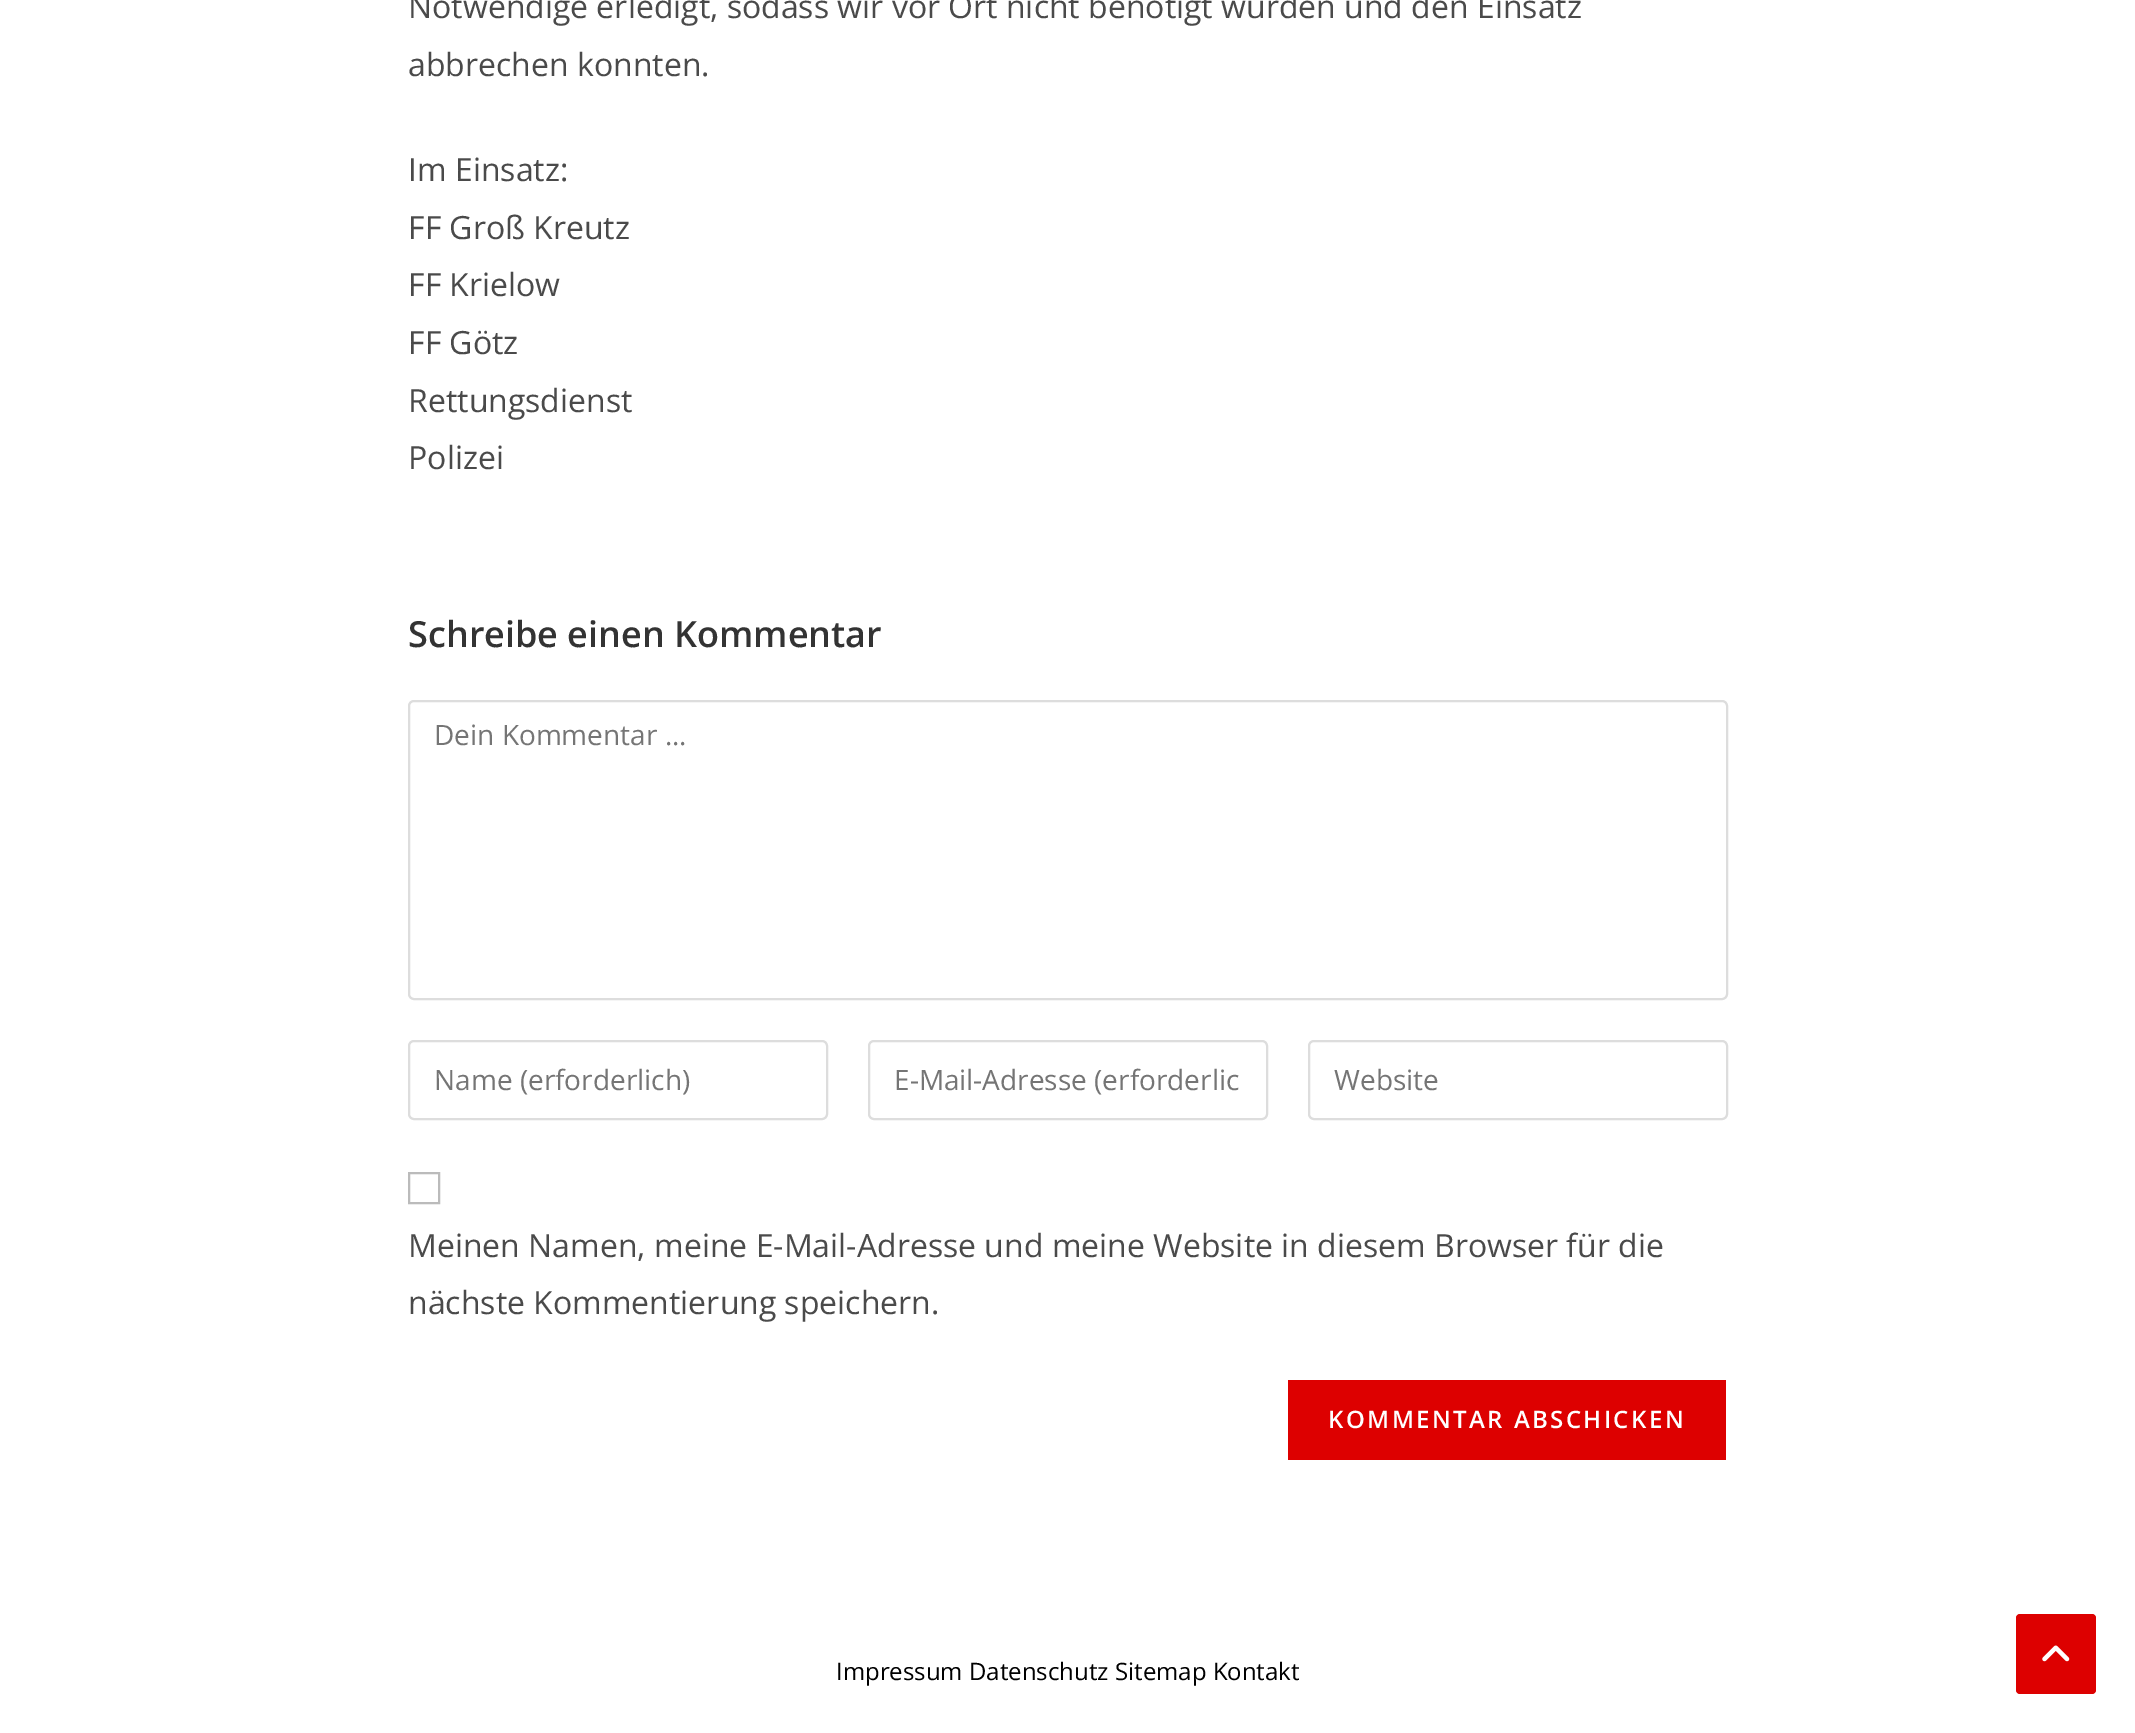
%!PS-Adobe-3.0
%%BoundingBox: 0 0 2135 1733
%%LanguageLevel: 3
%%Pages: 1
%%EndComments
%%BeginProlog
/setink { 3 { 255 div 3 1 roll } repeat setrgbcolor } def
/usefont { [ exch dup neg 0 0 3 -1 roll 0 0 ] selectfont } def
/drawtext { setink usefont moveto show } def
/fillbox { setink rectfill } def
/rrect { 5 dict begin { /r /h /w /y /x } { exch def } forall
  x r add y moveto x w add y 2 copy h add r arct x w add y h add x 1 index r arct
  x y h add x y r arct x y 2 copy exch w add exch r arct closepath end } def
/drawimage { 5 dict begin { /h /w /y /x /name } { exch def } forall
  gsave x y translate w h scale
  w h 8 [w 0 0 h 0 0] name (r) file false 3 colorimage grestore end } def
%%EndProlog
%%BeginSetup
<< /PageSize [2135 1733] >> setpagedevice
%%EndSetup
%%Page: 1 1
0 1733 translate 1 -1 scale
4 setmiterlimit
0 0 2135 1733 255 255 255 fillbox
(Notwendige erledigt, sodass wir vor Ort nicht benötigt wurden und den Einsatz) 408 18 /OpenSans-Regular 32 74 74 74 drawtext
(abbrechen konnten.) 408 76 /OpenSans-Regular 32 74 74 74 drawtext
(Im Einsatz:) 408 181 /OpenSans-Regular 32 74 74 74 drawtext
(FF Groß Kreutz) 408 239 /OpenSans-Regular 32 74 74 74 drawtext
(FF Krielow) 408 296 /OpenSans-Regular 32 74 74 74 drawtext
(FF Götz) 408 354 /OpenSans-Regular 32 74 74 74 drawtext
(Rettungsdienst) 408 412 /OpenSans-Regular 32 74 74 74 drawtext
(Polizei) 408 469 /OpenSans-Regular 32 74 74 74 drawtext
(Schreibe einen Kommentar) 408 647 /OpenSans-SemiBold 36 51 51 51 drawtext
221 221 221 setink
2 setlinewidth
409 701 1318 298 5 rrect stroke
(Dein Kommentar ...) 434 745 /OpenSans-Regular 28 117 117 117 drawtext
221 221 221 setink
409 1041 418 78 5 rrect stroke
(Name \(erforderlich\)) 434 1090 /OpenSans-Regular 28 117 117 117 drawtext
221 221 221 setink
869 1041 398 78 5 rrect stroke
(E-Mail-Adresse \(erforderlic) 894 1090 /OpenSans-Regular 28 117 117 117 drawtext
221 221 221 setink
1309 1041 418 78 5 rrect stroke
(Website) 1334 1090 /OpenSans-Regular 28 117 117 117 drawtext
187 187 187 setink
409 1173 30 30 rectstroke
(Meinen Namen, meine E-Mail-Adresse und meine Website in diesem Browser für die) 408 1257 /OpenSans-Regular 32 74 74 74 drawtext
(nächste Kommentierung speichern.) 408 1314 /OpenSans-Regular 32 74 74 74 drawtext
1288 1380 438 80 221 0 0 fillbox
/OpenSans-SemiBold 24 usefont
255 255 255 setink
1328 1428 moveto 2.4 0 (KOMMENTAR ABSCHICKEN) ashow
(Impressum Datenschutz Sitemap Kontakt) 836 1680 /OpenSans-Regular 24 0 0 0 drawtext
221 0 0 setink
2016 1614 80 80 4 rrect fill
(assets/img1.rgb) 2042 1645 28 17 drawimage
showpage
%%EOF
